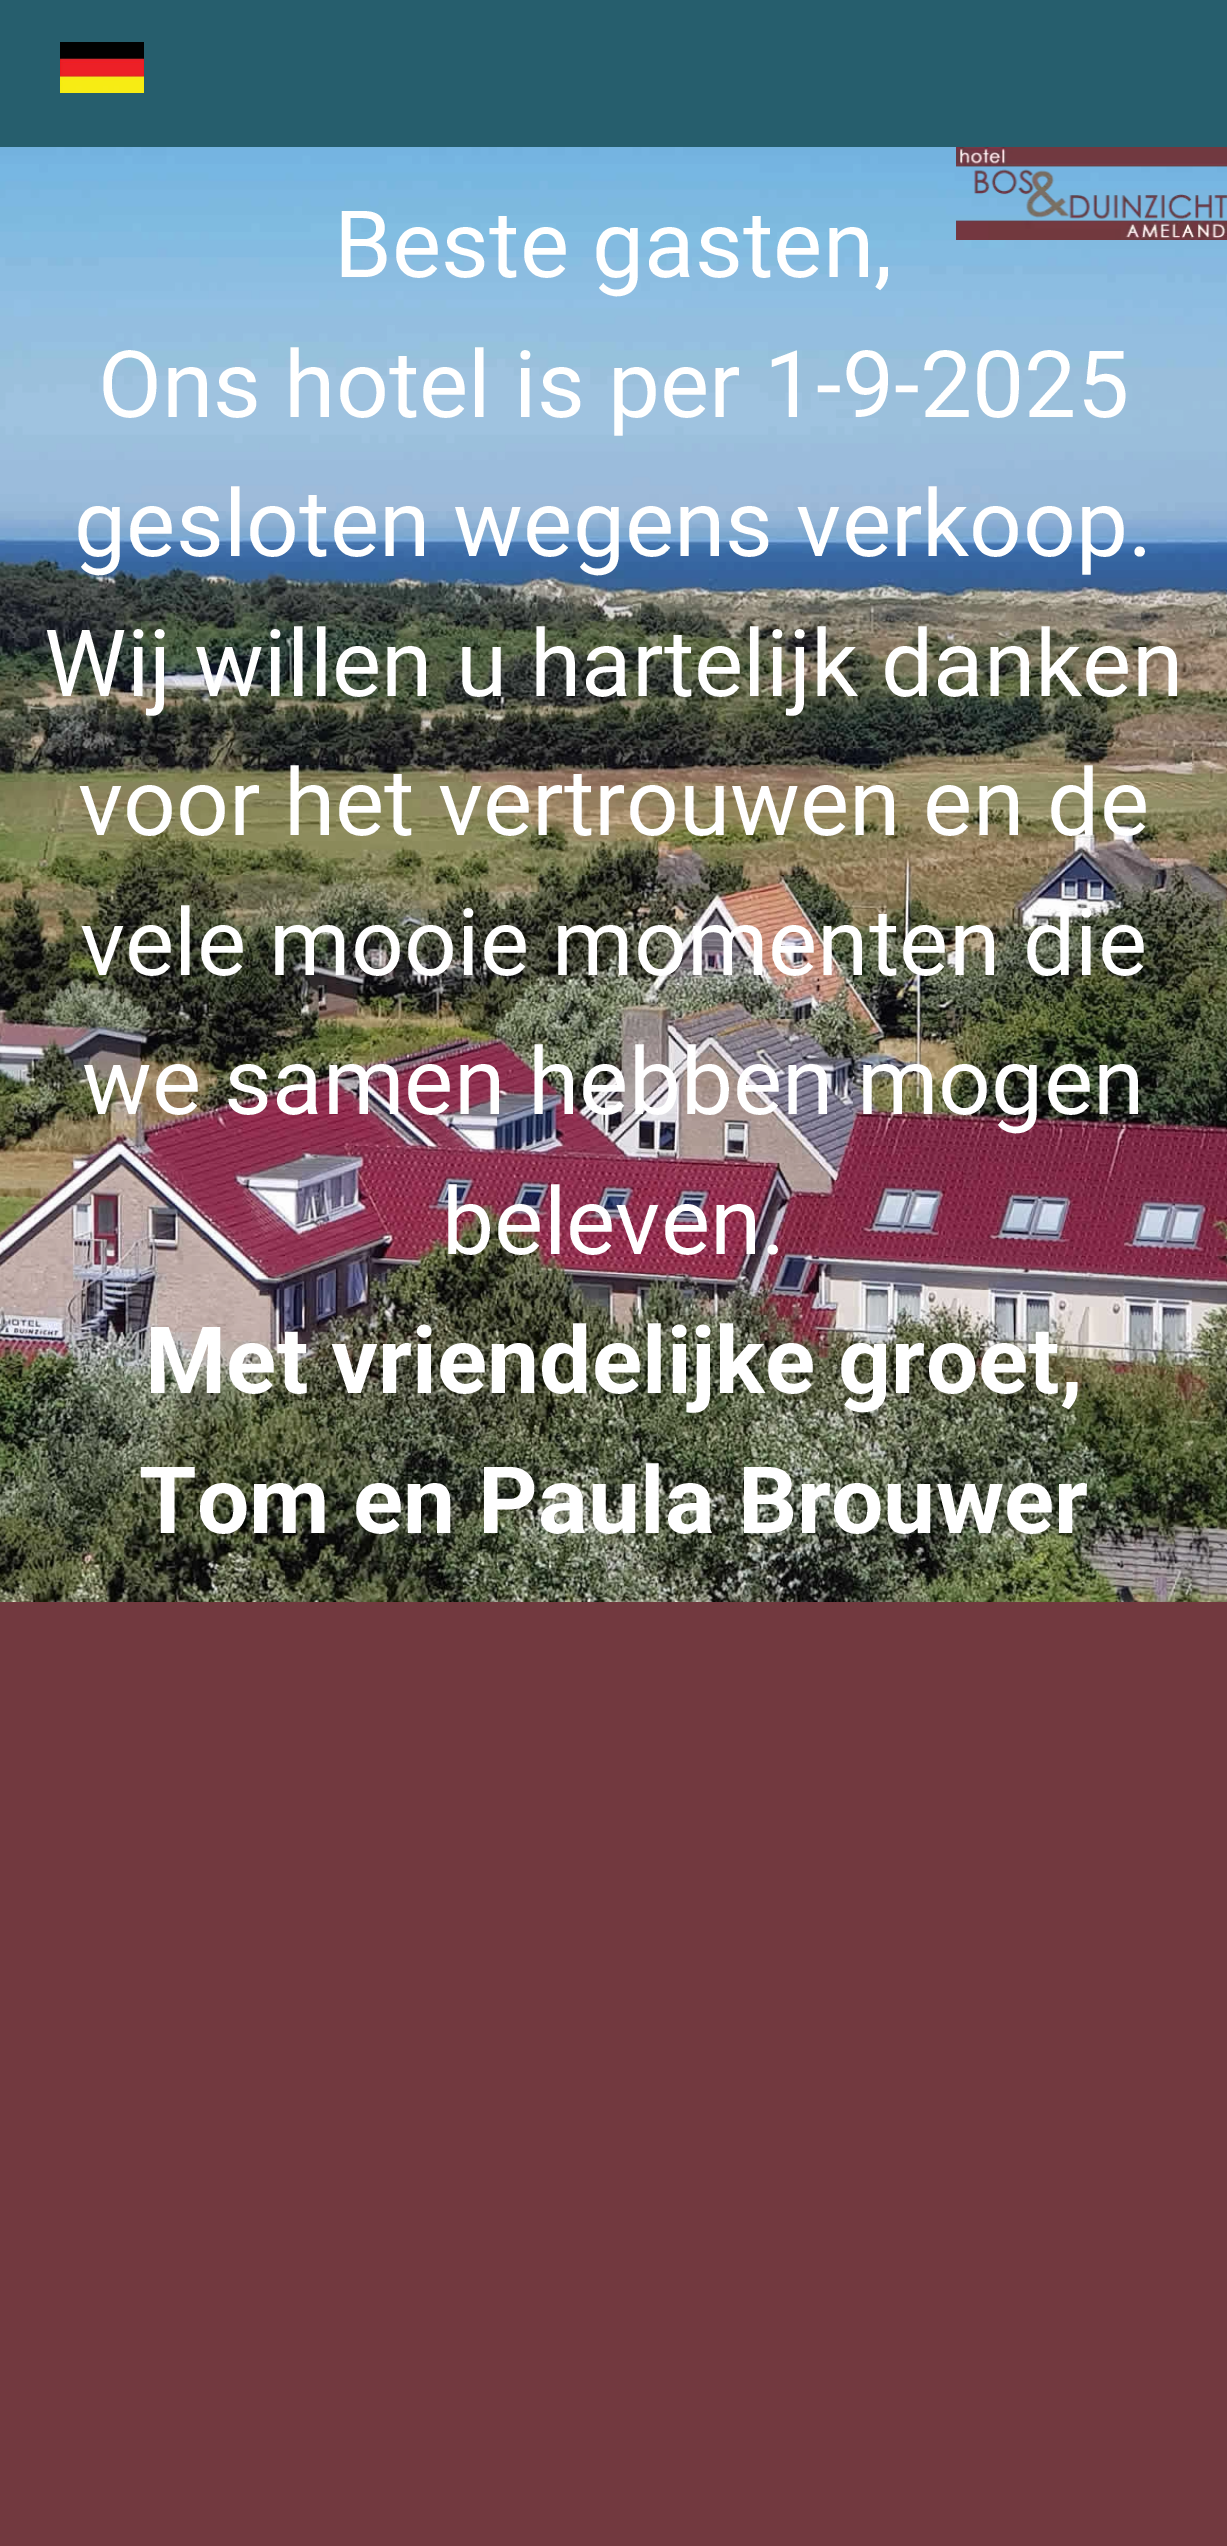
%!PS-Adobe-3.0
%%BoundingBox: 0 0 1227 2546
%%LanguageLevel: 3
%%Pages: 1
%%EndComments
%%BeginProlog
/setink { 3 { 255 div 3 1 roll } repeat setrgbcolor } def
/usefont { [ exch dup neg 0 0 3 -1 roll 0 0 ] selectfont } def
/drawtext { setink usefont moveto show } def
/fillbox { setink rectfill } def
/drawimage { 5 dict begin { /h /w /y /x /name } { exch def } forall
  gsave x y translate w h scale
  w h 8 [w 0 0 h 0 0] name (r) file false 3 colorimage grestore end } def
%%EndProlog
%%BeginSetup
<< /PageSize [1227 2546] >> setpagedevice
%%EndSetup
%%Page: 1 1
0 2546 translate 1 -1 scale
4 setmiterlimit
0 0 1227 2546 114 57 63 fillbox
(assets/img1.rgb) 0 0 1227 147 drawimage
(assets/img2.rgb) 60 42 84 51 drawimage
(assets/img3.rgb) 0 147 1227 1455 drawimage
(assets/img4.rgb) 956 147 271 93 drawimage
(Beste gasten,) 334 277 /Roboto-Regular 93 255 255 255 drawtext
(Ons hotel is per 1-9-2025) 98 417 /Roboto-Regular 93 255 255 255 drawtext
(gesloten wegens verkoop.) 74 556 /Roboto-Regular 93 255 255 255 drawtext
(Wij willen u hartelijk danken) 44 696 /Roboto-Regular 93 255 255 255 drawtext
(voor het vertrouwen en de) 78 835 /Roboto-Regular 93 255 255 255 drawtext
(vele mooie momenten die) 80 975 /Roboto-Regular 93 255 255 255 drawtext
(we samen hebben mogen) 82 1114 /Roboto-Regular 93 255 255 255 drawtext
(beleven.) 442 1254 /Roboto-Regular 93 255 255 255 drawtext
(Met vriendelijke groet,) 145 1393 /Roboto-Bold 93 255 255 255 drawtext
(Tom en Paula Brouwer) 139 1533 /Roboto-Bold 93 255 255 255 drawtext
showpage
%%EOF
